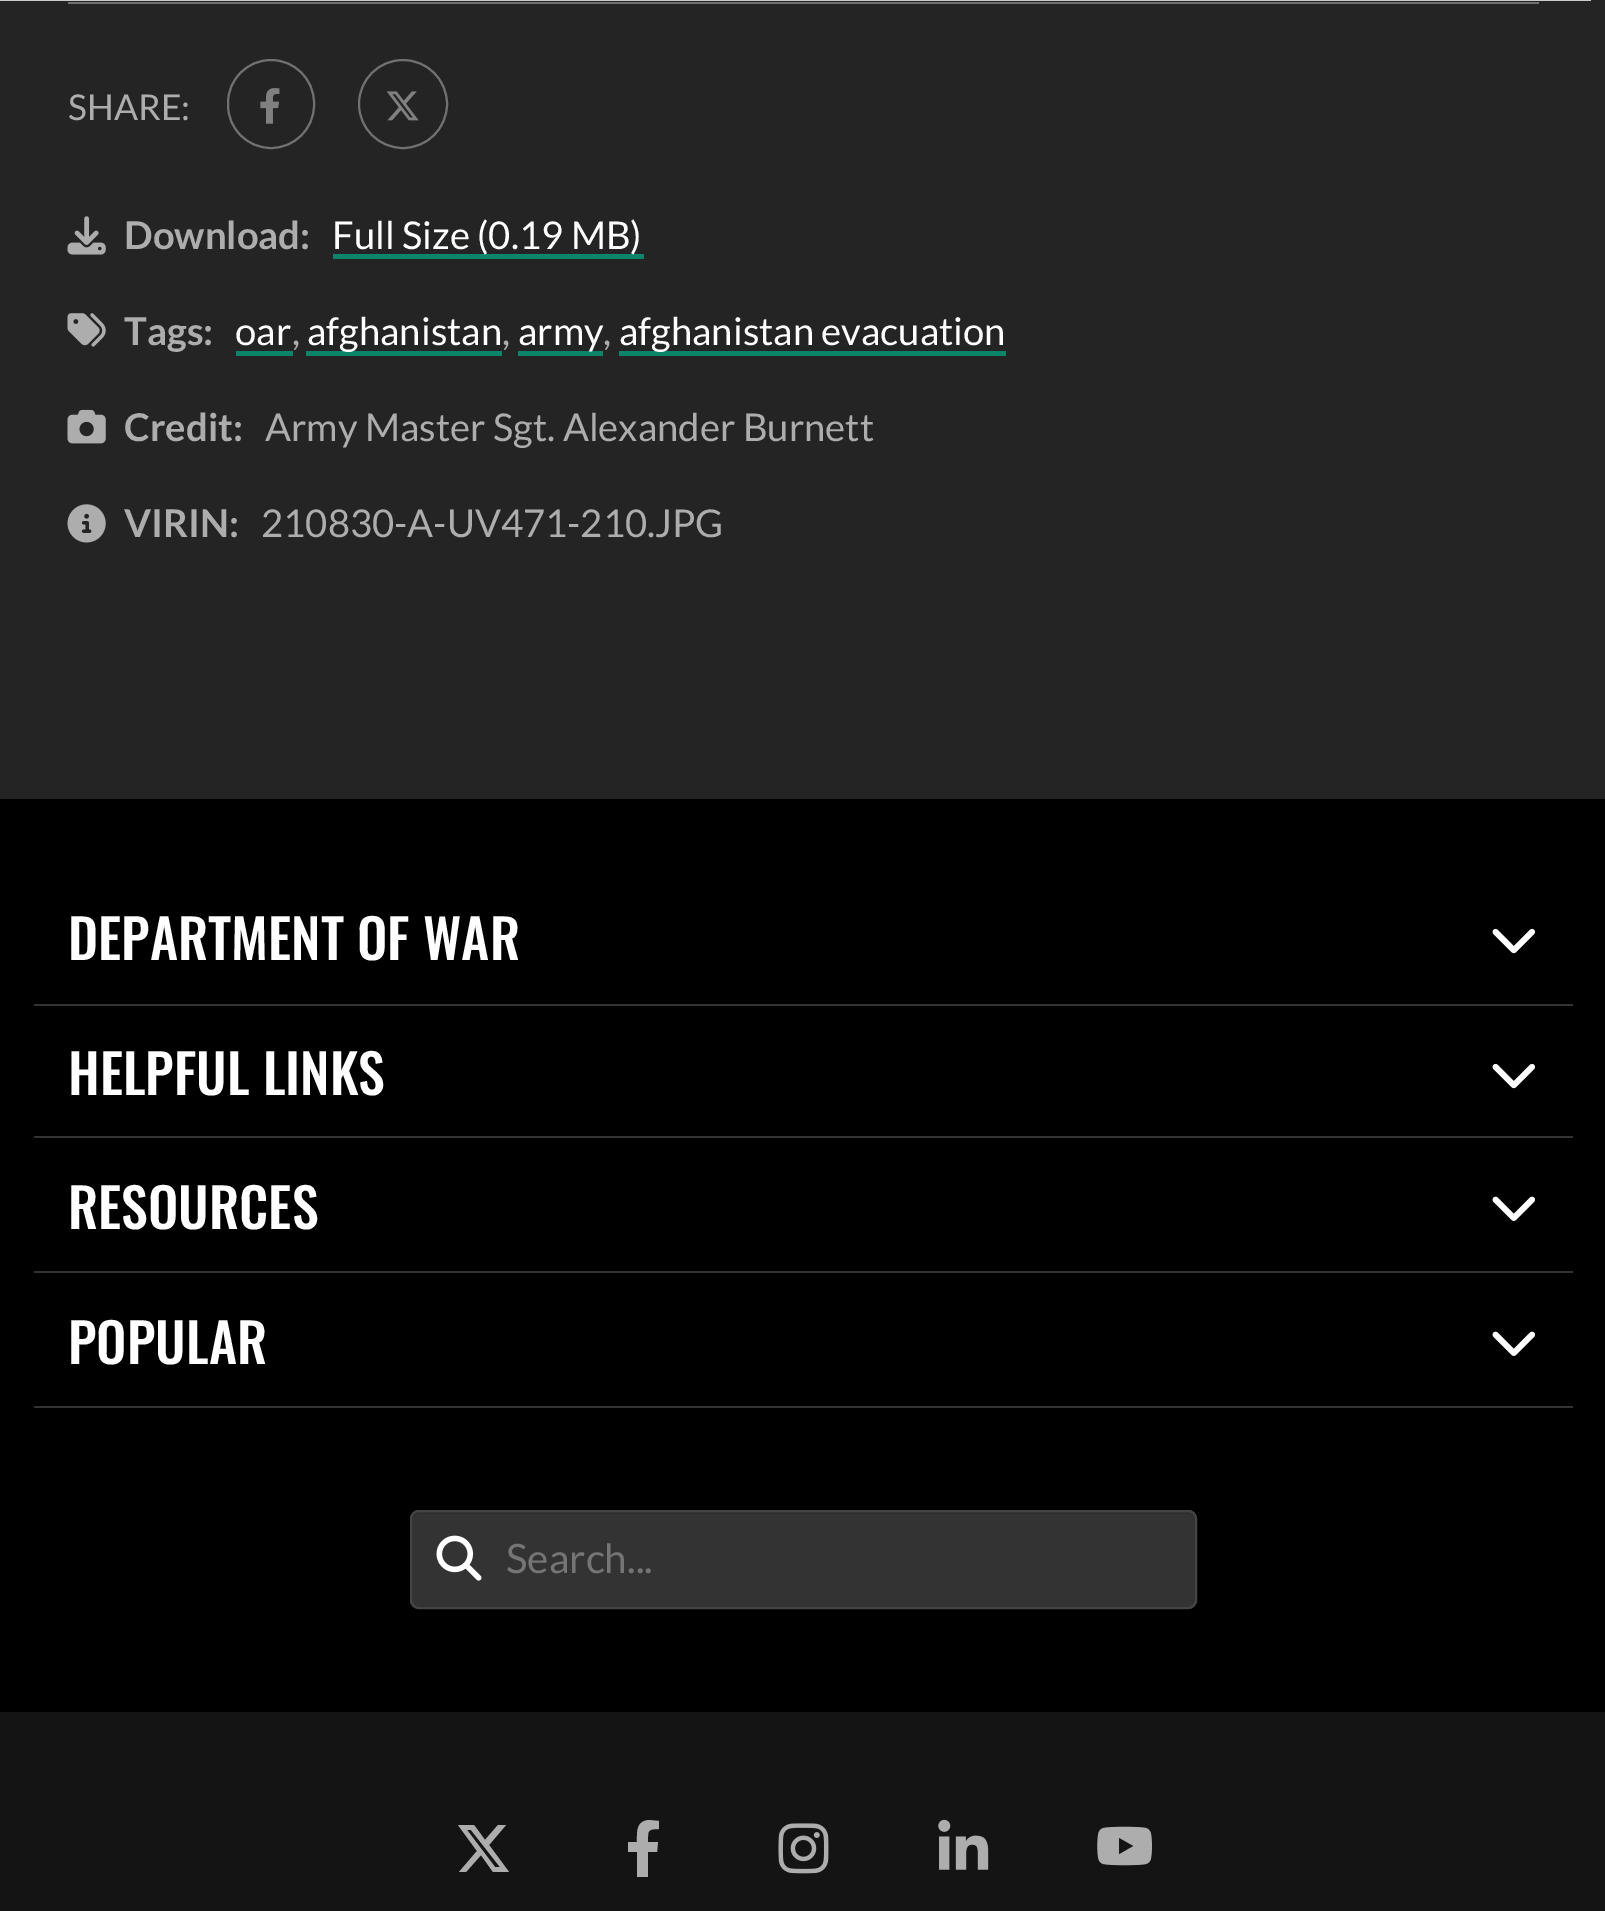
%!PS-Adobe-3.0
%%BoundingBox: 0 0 1605 1911
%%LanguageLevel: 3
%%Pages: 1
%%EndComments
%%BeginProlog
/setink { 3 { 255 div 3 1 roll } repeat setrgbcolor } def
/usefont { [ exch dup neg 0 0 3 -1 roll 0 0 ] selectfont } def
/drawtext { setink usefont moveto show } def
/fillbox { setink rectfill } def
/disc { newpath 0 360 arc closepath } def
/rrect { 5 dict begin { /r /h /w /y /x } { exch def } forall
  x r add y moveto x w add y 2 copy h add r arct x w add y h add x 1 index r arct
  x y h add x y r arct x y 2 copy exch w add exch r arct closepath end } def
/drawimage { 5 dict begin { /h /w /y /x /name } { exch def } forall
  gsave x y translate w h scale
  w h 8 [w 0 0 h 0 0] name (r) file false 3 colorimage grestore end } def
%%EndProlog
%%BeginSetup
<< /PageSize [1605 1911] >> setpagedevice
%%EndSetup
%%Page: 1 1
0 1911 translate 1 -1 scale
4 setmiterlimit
0 0 1605 1911 20 20 20 fillbox
0 0 1605 799 36 36 36 fillbox
0 0 1591 1 204 204 204 fillbox
68 2 1471 2 113 113 113 fillbox
(SHARE:) 68 120 /Lato-Regular 35.5 173 173 173 drawtext
113 113 113 setink
2 setlinewidth
228 60 86 88 43 rrect stroke
(assets/img1.rgb) 260 88 20 36 drawimage
403 104 44 disc stroke
(assets/img2.rgb) 386 91 33 30 drawimage
(assets/img3.rgb) 67 216 39 39 drawimage
(Download:) 124 249 /Lato-Bold 38.25 173 173 173 drawtext
333 254 311 5 10 133 106 fillbox
(Full Size \(0.19 MB\)) 332 249 /Lato-Regular 38.25 255 255 255 drawtext
(assets/img4.rgb) 67 313 39 34 drawimage
(Tags:) 124 345 /Lato-Bold 38.25 173 173 173 drawtext
236 351 57 5 10 133 106 fillbox
(oar) 235 345 /Lato-Regular 38.25 255 255 255 drawtext
(,) 292 345 /Lato-Regular 38.25 173 173 173 drawtext
306 351 196 5 10 133 106 fillbox
(afghanistan) 307 345 /Lato-Regular 38.25 255 255 255 drawtext
(,) 502 345 /Lato-Regular 38.25 173 173 173 drawtext
518 351 85 5 10 133 106 fillbox
(army) 518 345 /Lato-Regular 38.25 255 255 255 drawtext
(,) 603 345 /Lato-Regular 38.25 173 173 173 drawtext
619 351 387 5 10 133 106 fillbox
(afghanistan evacuation) 619 345 /Lato-Regular 38.25 255 255 255 drawtext
(assets/img5.rgb) 67 409 39 35 drawimage
(Credit:) 124 441 /Lato-Bold 38.25 173 173 173 drawtext
(Army Master Sgt. Alexander Burnett) 265 441 /Lato-Regular 38.25 173 173 173 drawtext
(assets/img6.rgb) 67 504 39 39 drawimage
(VIRIN:) 124 537 /Lato-Bold 38.25 173 173 173 drawtext
(210830-A-UV471-210.JPG) 261 537 /Lato-Regular 38.25 173 173 173 drawtext
0 799 1605 913 0 0 0 fillbox
34 1004 1539 2 51 51 51 fillbox
(DEPARTMENT OF WAR) 68 960 /Oswald-Medium 54 255 255 255 drawtext
(assets/img7.rgb) 1492 928 43 26 drawimage
34 1136 1539 2 51 51 51 fillbox
(HELPFUL LINKS) 68 1095 /Oswald-Medium 54 255 255 255 drawtext
(assets/img7.rgb) 1492 1063 43 26 drawimage
34 1271 1539 2 51 51 51 fillbox
(RESOURCES) 68 1229 /Oswald-Medium 54 255 255 255 drawtext
(assets/img8.rgb) 1492 1196 43 25 drawimage
34 1406 1539 2 51 51 51 fillbox
(POPULAR) 68 1364 /Oswald-Medium 54 255 255 255 drawtext
(assets/img8.rgb) 1492 1331 43 25 drawimage
51 51 51 setink
410 1510 787 99 9 rrect fill
47 47 47 setink
418 1514 moveto 1188 1514 lineto 1192 1514 1195 1517 1195 1521 curveto 1195 1519 lineto 1195 1515 1192 1512 1188 1512 curveto 419 1512 lineto 415 1512 412 1515 412 1519 curveto 412 1521 lineto 412 1517 415 1514 418 1514 curveto closepath fill
68 68 68 setink
411 1511 785 97 8 rrect stroke
(assets/img9.rgb) 436 1535 46 46 drawimage
(Search...) 506 1573 /Lato-Regular 40.5 117 117 117 drawtext
173 173 173 setink
498 1825 moveto 506 1825 lineto 489 1845 lineto 509 1872 lineto 493 1872 lineto 481 1855 lineto 466 1872 lineto 459 1872 lineto 477 1851 lineto 458 1825 lineto 474 1825 lineto 485 1840 lineto closepath 495 1867 moveto 500 1867 lineto 471 1830 lineto 467 1830 lineto closepath fill
657 1852 moveto 658 1842 lineto 648 1842 lineto 648 1831 647 1829 659 1829 curveto 659 1821 lineto 649 1820 lineto 636 1821 637 1832 637 1842 curveto 628 1842 lineto 628 1852 lineto 637 1852 lineto 637 1877 lineto 648 1877 lineto 648 1852 lineto closepath fill
(assets/img10.rgb) 778 1823 51 51 drawimage
(assets/img11.rgb) 938 1819 51 51 drawimage
(assets/img12.rgb) 1097 1826 55 40 drawimage
showpage
%%EOF
